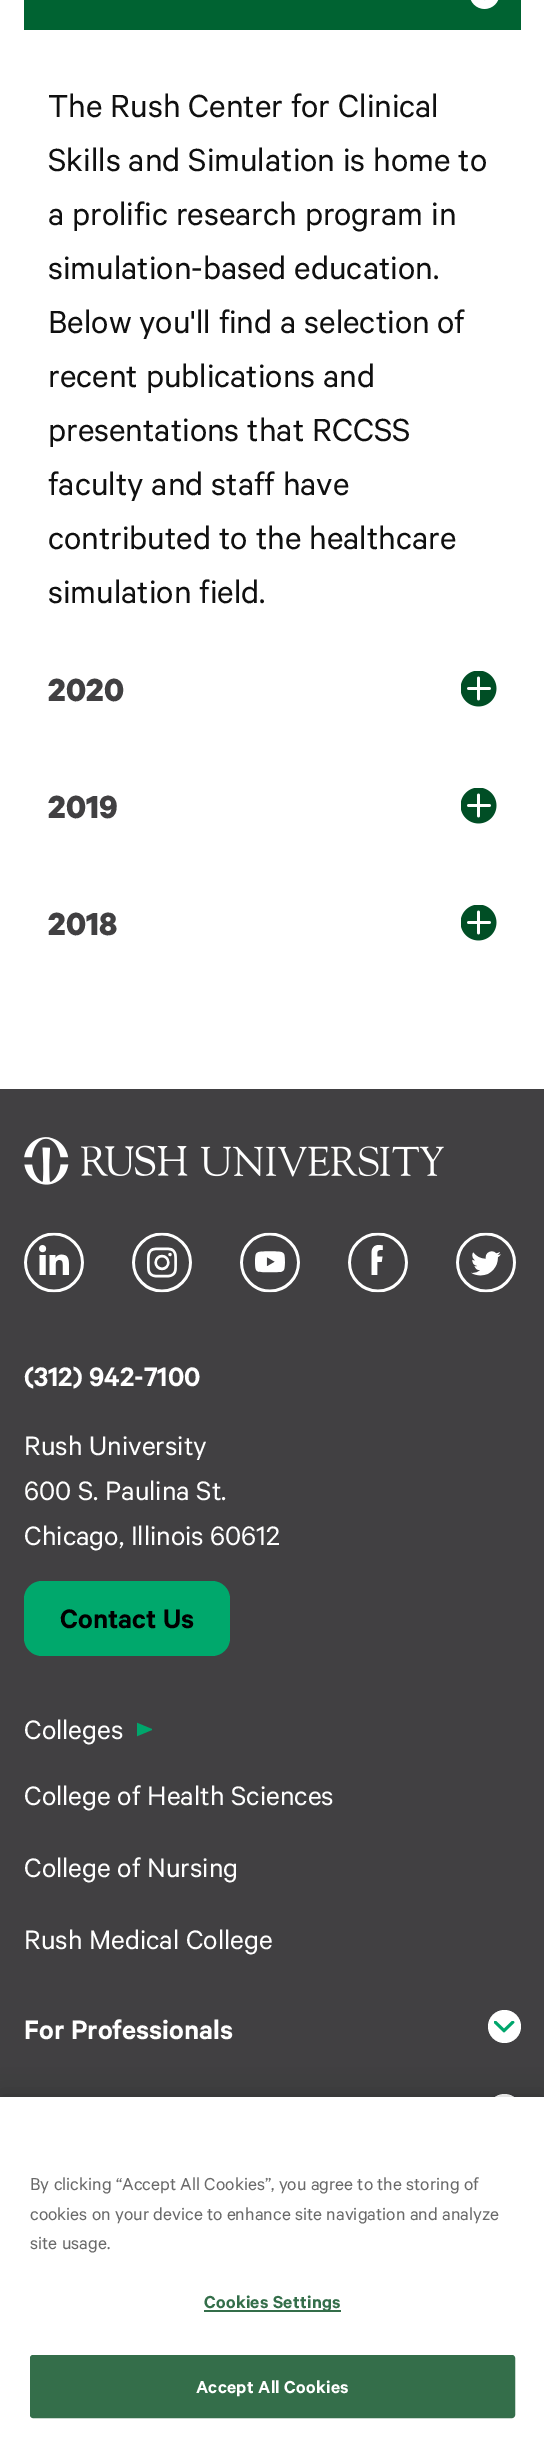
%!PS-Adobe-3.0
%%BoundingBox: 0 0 544 2442
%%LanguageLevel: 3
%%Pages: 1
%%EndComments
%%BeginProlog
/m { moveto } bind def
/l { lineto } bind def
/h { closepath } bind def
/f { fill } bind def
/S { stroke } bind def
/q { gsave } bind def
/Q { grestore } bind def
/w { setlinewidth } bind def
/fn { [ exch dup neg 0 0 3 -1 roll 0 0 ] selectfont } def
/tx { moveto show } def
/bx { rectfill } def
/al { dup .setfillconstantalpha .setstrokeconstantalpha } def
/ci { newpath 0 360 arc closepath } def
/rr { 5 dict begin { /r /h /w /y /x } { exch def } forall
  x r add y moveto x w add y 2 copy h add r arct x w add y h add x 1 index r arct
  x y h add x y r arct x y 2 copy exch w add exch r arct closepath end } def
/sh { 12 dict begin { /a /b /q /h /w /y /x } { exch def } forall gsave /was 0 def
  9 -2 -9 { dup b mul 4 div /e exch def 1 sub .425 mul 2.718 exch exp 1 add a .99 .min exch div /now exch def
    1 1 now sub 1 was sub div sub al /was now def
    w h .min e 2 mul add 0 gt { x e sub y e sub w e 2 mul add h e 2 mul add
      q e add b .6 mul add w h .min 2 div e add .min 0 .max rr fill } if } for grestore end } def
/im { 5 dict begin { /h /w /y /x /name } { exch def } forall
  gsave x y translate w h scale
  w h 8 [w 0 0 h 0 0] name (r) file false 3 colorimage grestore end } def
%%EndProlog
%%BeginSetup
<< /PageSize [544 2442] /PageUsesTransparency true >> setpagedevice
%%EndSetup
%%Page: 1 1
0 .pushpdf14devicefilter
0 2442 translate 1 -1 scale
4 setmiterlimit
1 setgray
0 0 544 2442 bx
0 0.388 0.196 setrgbcolor
24 0 497 30 bx
(image0.raw) 470 0 29 9 im
/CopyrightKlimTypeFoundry-Regular 36 fn
0.063 setgray
(The Rush Center for Clinical) 48 117 tx
(Skills and Simulation is home to) 48 171 tx
(a prolific research program in) 48 225 tx
(simulation-based education.) 48 279 tx
(Below you'll find a selection of) 48 333 tx
(recent publications and) 48 387 tx
(presentations that RCCSS) 48 441 tx
(faculty and staff have) 48 495 tx
(contributed to the healthcare) 48 549 tx
(simulation field.) 48 603 tx
(image1.raw) 461 671 36 36 im
/CopyrightKlimTypeFoundry-Bold 36 fn
0.255 0.251 0.259 setrgbcolor
(2020) 48 701 tx
(image1.raw) 461 788 36 36 im
(2019) 48 818 tx
(image1.raw) 461 905 36 36 im
(2018) 48 935 tx
0 1089 544 1008 bx
(image2.raw) 24 1137 420 48 im
(image3.raw) 24 1232 60 61 im
(image4.raw) 132 1232 60 61 im
(image5.raw) 240 1232 60 61 im
(image6.raw) 348 1232 60 61 im
(image7.raw) 456 1232 60 61 im
/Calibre-SemiBold 30 fn
1 setgray
(\(312\) 942-7100) 24 1386 tx
/CopyrightKlimTypeFoundry-Regular 30 fn
(Rush University) 24 1455 tx
(600 S. Paulina St.) 24 1500 tx
(Chicago, Illinois 60612) 24 1545 tx
0 0.659 0.424 setrgbcolor
24 1581 206 75 18 rr f
/Calibre-SemiBold 30 fn
0 setgray
(Contact Us) 60 1628 tx
/CopyrightKlimTypeFoundry-Regular 30 fn
1 setgray
(Colleges) 24 1739 tx
q
137 1722 15 15 rectclip
0 0.651 0.424 setrgbcolor
153 1729.5 m 135 1737 l 135 1722 l h eofill
Q
(College of Health Sciences) 24 1805 tx
(College of Nursing) 24 1877 tx
(Rush Medical College) 24 1949 tx
/Calibre-SemiBold 30 fn
(For Professionals) 24 2039 tx
504.5 2026.5 16.5 ci f
(image8.raw) 494 2021 21 12 im
504.5 2110.5 16.5 ci f
0 setgray
0 2097 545 345 0 13.5 0.2 sh
1 setgray
0 2097 544 345 bx
/CopyrightKlimTypeFoundry-Regular 19.5 fn
0.412 setgray
(By clicking “Accept All Cookies”, you agree to the storing of) 30 2190 tx
(cookies on your device to enhance site navigation and analyze) 30 2220 tx
(site usage.) 30 2249 tx
0.204 0.431 0.29 setrgbcolor
204 2310 137 2 bx
/Calibre-SemiBold 19.5 fn
204 2308 m 0.25 0 (Cookies Settings) ashow
31 2356 483 61 2 rr q f Q
2 w
S
1 setgray
196 2393 m 0.25 0 (Accept All Cookies) ashow
.poppdf14devicefilter showpage
%%EOF
